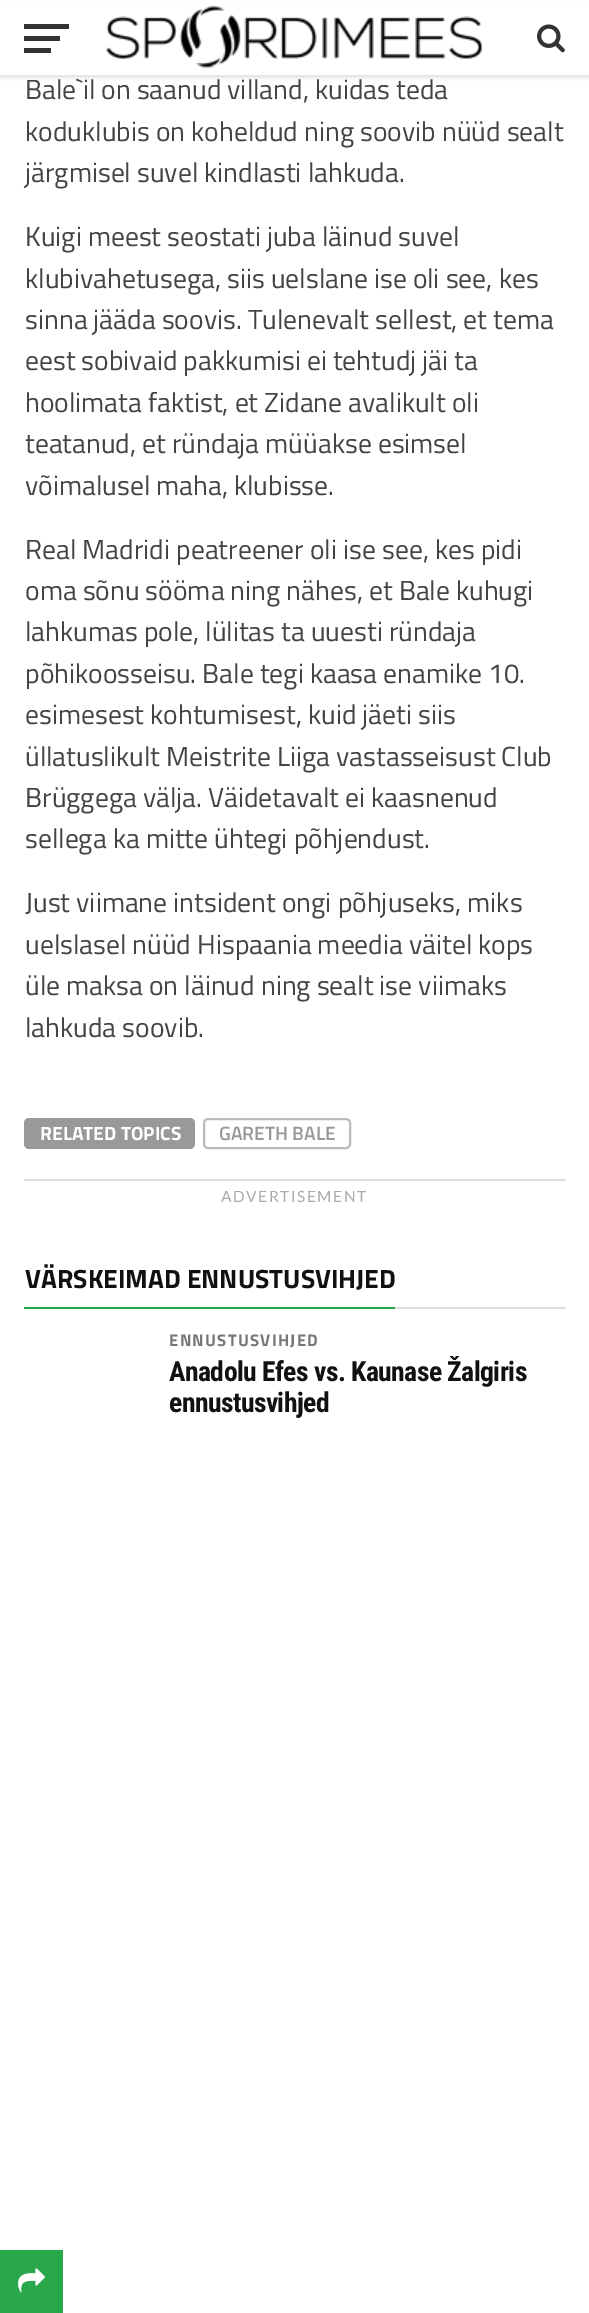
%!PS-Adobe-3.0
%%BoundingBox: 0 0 589 2313
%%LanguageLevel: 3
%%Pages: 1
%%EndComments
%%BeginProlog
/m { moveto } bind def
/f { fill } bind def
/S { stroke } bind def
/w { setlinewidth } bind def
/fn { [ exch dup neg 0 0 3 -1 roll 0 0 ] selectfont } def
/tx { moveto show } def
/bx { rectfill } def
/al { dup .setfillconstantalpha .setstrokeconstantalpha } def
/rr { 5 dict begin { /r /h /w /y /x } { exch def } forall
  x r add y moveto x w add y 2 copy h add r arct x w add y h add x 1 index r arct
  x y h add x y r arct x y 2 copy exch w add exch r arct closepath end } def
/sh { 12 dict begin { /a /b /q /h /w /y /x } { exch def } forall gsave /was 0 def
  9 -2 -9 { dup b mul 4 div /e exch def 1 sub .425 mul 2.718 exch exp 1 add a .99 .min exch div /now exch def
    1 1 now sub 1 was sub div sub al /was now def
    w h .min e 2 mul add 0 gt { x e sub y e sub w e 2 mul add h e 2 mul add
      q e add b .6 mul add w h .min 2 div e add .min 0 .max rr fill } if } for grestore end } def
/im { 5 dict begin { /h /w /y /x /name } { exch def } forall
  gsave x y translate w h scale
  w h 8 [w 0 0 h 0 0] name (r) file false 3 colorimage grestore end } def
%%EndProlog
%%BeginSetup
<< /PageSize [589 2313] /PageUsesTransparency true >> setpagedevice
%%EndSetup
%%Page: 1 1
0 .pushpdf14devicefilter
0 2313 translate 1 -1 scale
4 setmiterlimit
1 setgray
0 0 589 2313 bx
0 setgray
0 3 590 75 0 1.5 0.1 sh
1 setgray
0 1 589 74 bx
0.2 setgray
24 24 45 5 bx
24 36 36 5 bx
24 48 27 5 bx
(image0.raw) 106 5 376 63 im
(image1.raw) 537 24 28 29 im
/TitilliumWeb-Regular 27.6 fn
0.267 setgray
(Bale`il on saanud villand, kuidas teda) 25 99 tx
(koduklubis on koheldud ning soovib nüüd sealt) 25 141 tx
(järgmisel suvel kindlasti lahkuda.) 25 182 tx
(Kuigi meest seostati juba läinud suvel) 25 246 tx
(klubivahetusega, siis uelslane ise oli see, kes) 25 288 tx
(sinna jääda soovis. Tulenevalt sellest, et tema) 25 329 tx
(eest sobivaid pakkumisi ei tehtudj jäi ta) 25 370 tx
(hoolimata faktist, et Zidane avalikult oli) 25 412 tx
(teatanud, et ründaja müüakse esimsel) 25 453 tx
(võimalusel maha, klubisse.) 25 495 tx
(Real Madridi peatreener oli ise see, kes pidi) 25 559 tx
(oma sõnu sööma ning nähes, et Bale kuhugi) 25 600 tx
(lahkumas pole, lülitas ta uuesti ründaja) 25 641 tx
(põhikoosseisu. Bale tegi kaasa enamike 10.) 25 683 tx
(esimesest kohtumisest, kuid jäeti siis) 25 724 tx
(üllatuslikult Meistrite Liiga vastasseisust Club) 25 766 tx
(Brüggega välja. Väidetavalt ei kaasnenud) 25 807 tx
(sellega ka mitte ühtegi põhjendust.) 25 848 tx
(Just viimane intsident ongi põhjuseks, miks) 25 912 tx
(uelslasel nüüd Hispaania meedia väitel kops) 25 954 tx
(üle maksa on läinud ning sealt ise viimaks) 25 995 tx
(lahkuda soovib.) 25 1037 tx
0.6 setgray
24 1118 171 31 5 rr f
/TitilliumWeb-Bold 19.25 fn
1 setgray
(RELATED TOPICS) 40 1140 tx
0.733 setgray
2 w
204 1119 146 29 4 rr S
/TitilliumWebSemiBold-SemiBold 19.25 fn
0.6 setgray
(GARETH BALE) 219 1140 tx
0.867 setgray
24 1179 542 2 bx
/Lato-Regular 15.5 fn
0.667 setgray
221 1202 m 1.5 0 (ADVERTISEMENT) ashow
0.867 setgray
395 1307 171 2 bx
0.157 0.659 0.29 setrgbcolor
24 1307 371 2 bx
/TitilliumWeb-Bold 26.4 fn
0.067 setgray
(VÄRSKEIMAD ENNUSTUSVIHJED) 25 1288 tx
/TitilliumWeb-Bold 16.75 fn
0.467 setgray
169 1346 m 1.25 0 (ENNUSTUSVIHJED) ashow
/RobotoCondensed-Bold 27.6 fn
0.067 setgray
169 1381 m -0.55 0 (Anadolu Efes vs. Kaunase Žalgiris) ashow
169 1412 m -0.55 0 (ennustusvihjed) ashow
0.157 0.659 0.29 setrgbcolor
0 2250 63 63 bx
(image2.raw) 18 2268 27 25 im
.poppdf14devicefilter showpage
%%EOF
